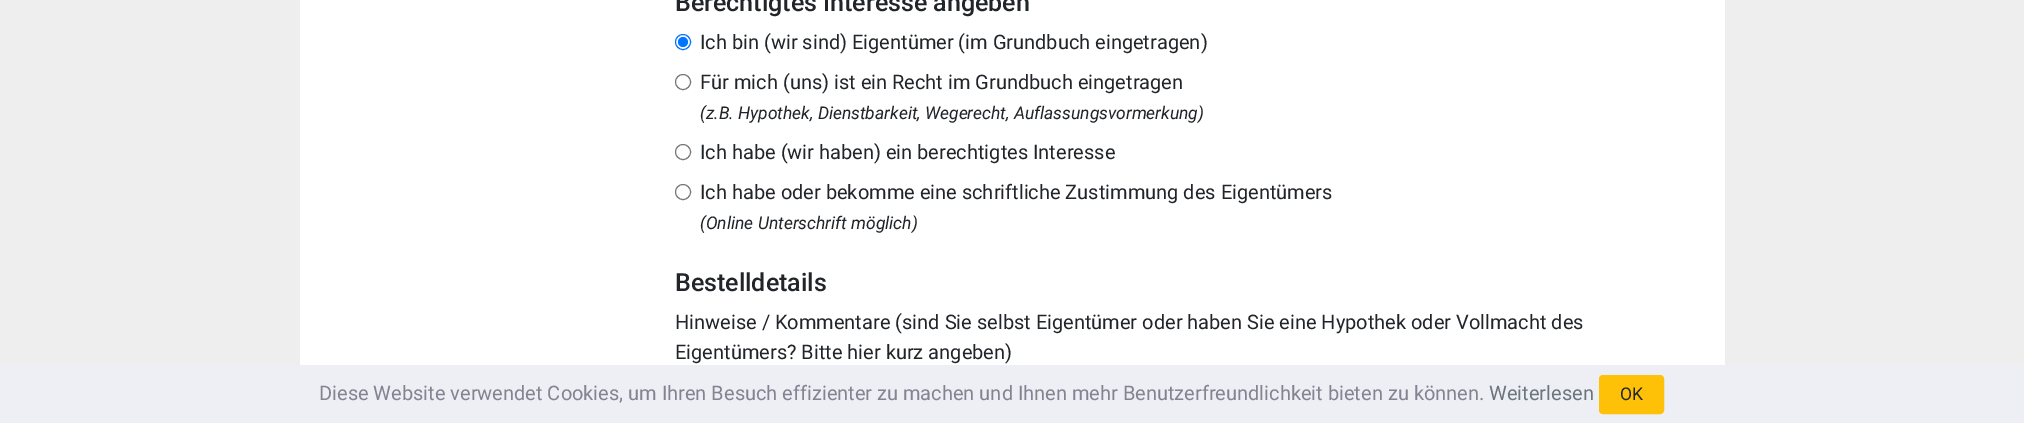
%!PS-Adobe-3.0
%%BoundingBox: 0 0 2024 423
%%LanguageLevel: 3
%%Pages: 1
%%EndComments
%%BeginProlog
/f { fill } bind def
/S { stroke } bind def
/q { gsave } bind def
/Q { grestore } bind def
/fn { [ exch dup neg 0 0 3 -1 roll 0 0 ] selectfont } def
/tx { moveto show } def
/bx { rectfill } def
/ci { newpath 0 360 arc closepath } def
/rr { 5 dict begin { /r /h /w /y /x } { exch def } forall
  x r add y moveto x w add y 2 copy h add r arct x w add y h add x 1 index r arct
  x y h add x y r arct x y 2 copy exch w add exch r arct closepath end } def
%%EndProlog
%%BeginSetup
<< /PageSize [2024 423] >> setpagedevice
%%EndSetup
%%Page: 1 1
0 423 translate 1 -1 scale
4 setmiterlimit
0.933 setgray
0 0 2024 423 bx
1 setgray
300 0 1425 365 bx
/Roboto-Medium 25 fn
0.129 0.145 0.161 setrgbcolor
(Berechtigtes Interesse angeben) 675 11 tx
0 0.459 1 setrgbcolor
683 42 7.5 ci S
683 42 5 ci f
/Roboto-Regular 20 fn
0.129 0.145 0.161 setrgbcolor
(Ich bin \(wir sind\) Eigentümer \(im Grundbuch eingetragen\)) 700 49 tx
0.463 setgray
683 82 7.5 ci S
0.129 0.145 0.161 setrgbcolor
(Für mich \(uns\) ist ein Recht im Grundbuch eingetragen) 700 89 tx
/Roboto-Italic 17.5 fn
(\(z.B. Hypothek, Dienstbarkeit, Wegerecht, Auflassungsvormerkung\)) 700 119 tx
0.463 setgray
683 152 7.5 ci S
/Roboto-Regular 20 fn
0.129 0.145 0.161 setrgbcolor
(Ich habe \(wir haben\) ein berechtigtes Interesse) 700 159 tx
0.463 setgray
683 192 7.5 ci S
0.129 0.145 0.161 setrgbcolor
(Ich habe oder bekomme eine schriftliche Zustimmung des Eigentümers) 700 199 tx
/Roboto-Italic 17.5 fn
(\(Online Unterschrift möglich\)) 700 229 tx
/Roboto-Medium 25 fn
(Bestelldetails) 675 291 tx
/Roboto-Regular 20 fn
(Hinweise / Kommentare \(sind Sie selbst Eigentümer oder haben Sie eine Hypothek oder Vollmacht des) 675 329 tx
(Eigentümers? Bitte hier kurz angeben\)) 675 359 tx
0.929 0.937 0.961 setrgbcolor
0 365 2024 58 bx
0.514 0.514 0.569 setrgbcolor
(Diese Website verwendet Cookies, um Ihren Besuch effizienter zu machen und Ihnen mehr Benutzerfreundlichkeit bieten zu können.) 319 400 tx
0.424 0.459 0.49 setrgbcolor
(Weiterlesen) 1489 400 tx
1 0.757 0.027 setrgbcolor
1599.5 375.5 64 38 3.5 rr q f Q
S
/Roboto-Regular 17.5 fn
0.129 0.145 0.161 setrgbcolor
(OK) 1620 400 tx
showpage
%%EOF
